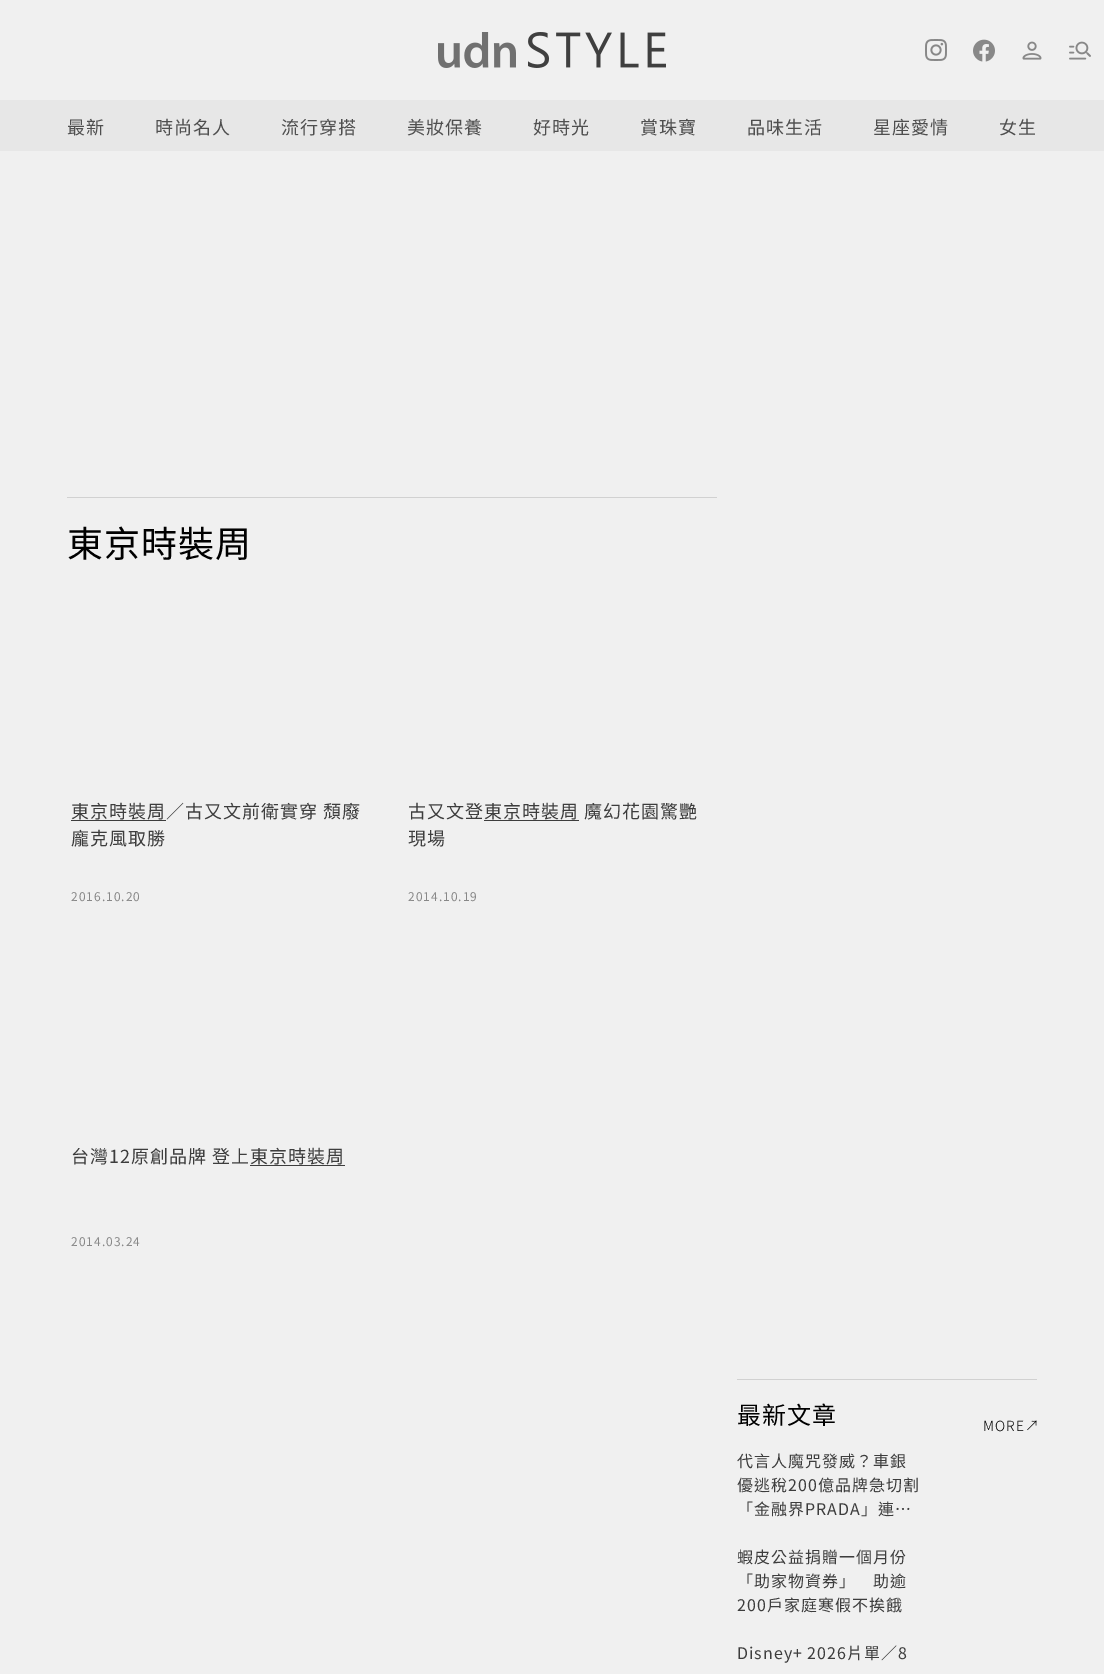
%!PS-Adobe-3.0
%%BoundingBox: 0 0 1104 1674
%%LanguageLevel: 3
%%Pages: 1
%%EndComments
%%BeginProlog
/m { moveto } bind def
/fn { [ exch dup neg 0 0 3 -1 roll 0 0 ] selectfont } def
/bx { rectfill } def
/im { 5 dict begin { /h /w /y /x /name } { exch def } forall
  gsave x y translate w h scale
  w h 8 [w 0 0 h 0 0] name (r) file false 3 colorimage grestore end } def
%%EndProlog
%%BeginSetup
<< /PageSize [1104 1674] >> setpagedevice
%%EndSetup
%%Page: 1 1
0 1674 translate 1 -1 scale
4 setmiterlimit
0.941 setgray
0 0 1104 1674 bx
(image0.raw) 438 32 78 36 im
(image1.raw) 528 32 138 36 im
(image2.raw) 925 39 22 22 im
(image3.raw) 973 39 22 23 im
(image4.raw) 1022 41 20 19 im
(image5.raw) 1069 41 22 19 im
0.906 setgray
0 100 1104 51 bx
/NotoSansTC-Regular 18 fn
0.31 setgray
67 134 m 1 0 (最新) ashow
155 134 m 1 0 (時尚名人) ashow
281 134 m 1 0 (流行穿搭) ashow
407 134 m 1 0 (美妝保養) ashow
533 134 m 1 0 (好時光) ashow
640 134 m 1 0 (賞珠寶) ashow
747 134 m 1 0 (品味生活) ashow
873 134 m 1 0 (星座愛情) ashow
999 134 m 1 0 (女生) ashow
0.82 setgray
67 497 650 1 bx
/NotoSansTC-Regular 36 fn
0 setgray
67 557 m 1 0 (東京時裝周) ashow
/NotoSansTC-Regular 18 fn
0.239 setgray
71 818 m 1 0 (東京時裝周／古又文前衛實穿 頹廢) ashow
71 820 95 1 bx
71 845 m 1 0 (龐克風取勝) ashow
/NotoSansTC-Regular 12 fn
0.533 setgray
71 901 m 1 0 (2016.10.20) ashow
/NotoSansTC-Regular 18 fn
0.239 setgray
408 818 m 1 0 (古又文登東京時裝周 魔幻花園驚艷) ashow
484 820 95 1 bx
408 845 m 1 0 (現場) ashow
/NotoSansTC-Regular 12 fn
0.533 setgray
408 901 m 1 0 (2014.10.19) ashow
/NotoSansTC-Regular 18 fn
0.239 setgray
71 1163 m 1 0 (台灣12原創品牌 登上東京時裝周) ashow
250 1165 95 1 bx
/NotoSansTC-Regular 12 fn
0.533 setgray
71 1246 m 1 0 (2014.03.24) ashow
0.82 setgray
737 1379 300 1 bx
/NotoSansTC-Regular 24 fn
0 setgray
737 1424 m 1 0 (最新文章) ashow
/NotoSansTC-Light 14 fn
983 1431 m 1 0 (MORE) ashow
(image6.raw) 1027 1420 10 11 im
/NotoSansTC-Regular 16 fn
0.239 setgray
737 1467 m 1 0 (代言人魔咒發威？車銀) ashow
737 1491 m 1 0 (優逃稅200億品牌急切割) ashow
737 1515 m 1 0 (「金融界PRADA」連…) ashow
737 1563 m 1 0 (蝦皮公益捐贈一個月份) ashow
737 1587 m 1 0 (「助家物資券」　助逾) ashow
737 1611 m 1 0 (200戶家庭寒假不挨餓) ashow
737 1659 m 1 0 (Disney+ 2026片單／8) ashow
showpage
%%EOF
